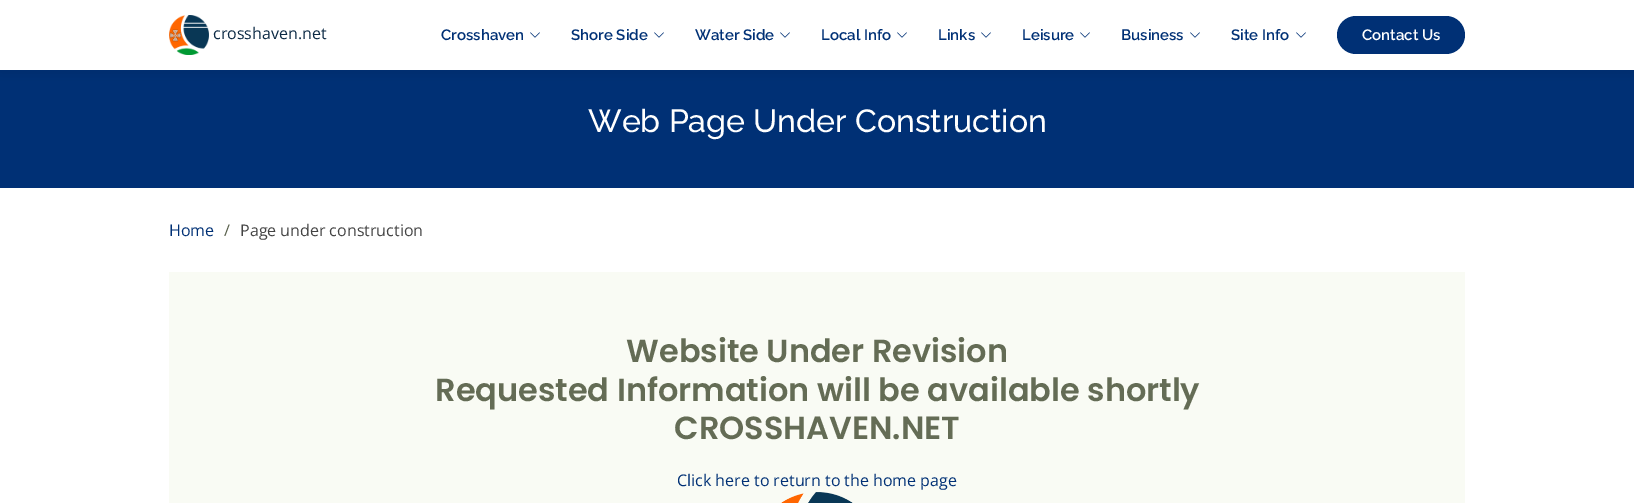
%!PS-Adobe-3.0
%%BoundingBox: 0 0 1634 503
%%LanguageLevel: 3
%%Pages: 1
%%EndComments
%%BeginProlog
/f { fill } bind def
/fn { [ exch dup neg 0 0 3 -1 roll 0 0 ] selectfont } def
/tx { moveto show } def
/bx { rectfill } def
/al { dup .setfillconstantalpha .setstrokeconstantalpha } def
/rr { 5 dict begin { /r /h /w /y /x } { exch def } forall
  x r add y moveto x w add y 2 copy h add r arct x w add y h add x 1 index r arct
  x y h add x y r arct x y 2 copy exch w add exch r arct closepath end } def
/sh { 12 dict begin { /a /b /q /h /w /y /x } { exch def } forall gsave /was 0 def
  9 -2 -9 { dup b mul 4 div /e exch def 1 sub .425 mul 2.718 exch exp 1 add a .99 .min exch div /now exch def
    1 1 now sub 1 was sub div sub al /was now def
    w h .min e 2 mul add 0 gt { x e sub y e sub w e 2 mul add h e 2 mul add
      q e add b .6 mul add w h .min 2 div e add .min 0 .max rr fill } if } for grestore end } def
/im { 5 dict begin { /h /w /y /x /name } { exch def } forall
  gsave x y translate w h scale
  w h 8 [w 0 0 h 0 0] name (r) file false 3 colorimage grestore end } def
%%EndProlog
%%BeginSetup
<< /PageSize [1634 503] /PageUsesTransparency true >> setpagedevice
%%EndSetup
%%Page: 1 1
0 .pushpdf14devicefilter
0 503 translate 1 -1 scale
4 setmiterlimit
1 setgray
0 0 1634 503 bx
0 0.188 0.459 setrgbcolor
0 70 1634 118 bx
0 setgray
0 2 1634 70 0 7.5 0.1 sh
1 setgray
0 0 1634 70 bx
(image0.raw) 169 15 40 40 im
/OpenSans-Regular 16 fn
0.043 0.161 0.267 setrgbcolor
(crosshaven.net) 213 39 tx
/Raleway-SemiBold 15 fn
0 0.188 0.459 setrgbcolor
(Crosshaven) 441 40 tx
(image1.raw) 530 32 10 6 im
(Shore Side) 571 40 tx
(image1.raw) 654 32 10 6 im
(Water Side) 695 40 tx
(image1.raw) 780 32 10 6 im
(Local Info) 821 40 tx
(image1.raw) 897 32 10 6 im
(Links) 938 40 tx
(image1.raw) 981 32 10 6 im
(Leisure) 1022 40 tx
(image1.raw) 1080 32 10 6 im
(Business) 1121 40 tx
(image1.raw) 1190 32 10 6 im
(Site Info) 1231 40 tx
(image1.raw) 1296 32 10 6 im
1337 16 128 38 19 rr f
1 setgray
(Contact Us) 1362 40 tx
/Raleway-Medium 32 fn
(Web Page Under Construction) 588 132 tx
/OpenSans-Regular 16 fn
0 0.188 0.459 setrgbcolor
(Home) 169 236 tx
0.337 0.369 0.286 setrgbcolor
(/) 224 236 tx
0.267 setgray
(Page under construction) 240 236 tx
0.976 0.984 0.957 setrgbcolor
169 272 1296 231 bx
/Poppins-SemiBold 32 fn
0.392 0.424 0.333 setrgbcolor
(Website Under Revision) 626 362 tx
(Requested Information will be available shortly) 435 401 tx
(CROSSHAVEN.NET) 674 439 tx
/OpenSans-Regular 16 fn
0 0.188 0.459 setrgbcolor
(Click here to return to the home page) 677 486 tx
(image2.raw) 781 492 72 11 im
.poppdf14devicefilter showpage
%%EOF
